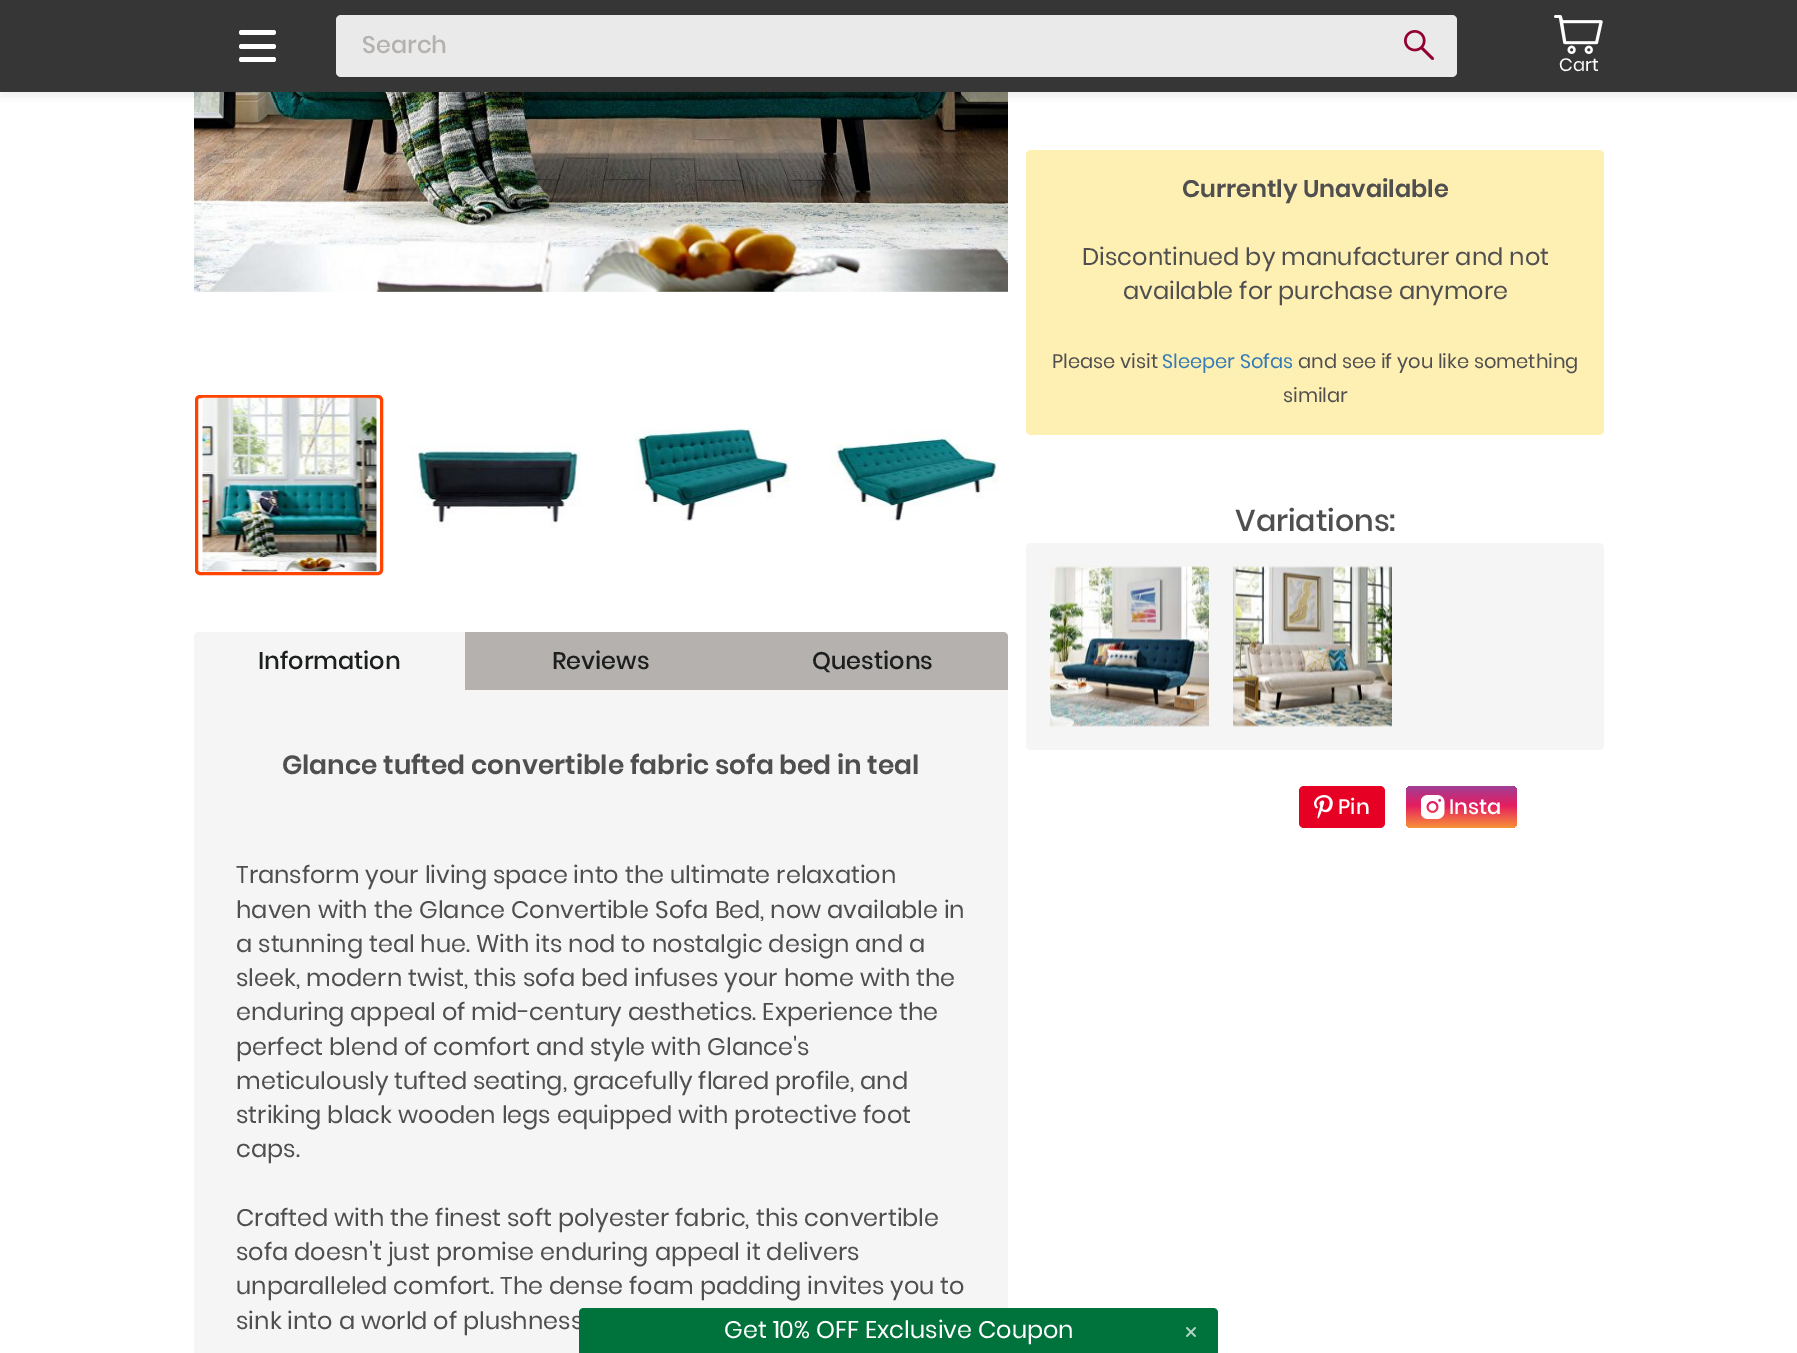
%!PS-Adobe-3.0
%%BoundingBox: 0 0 1797 1353
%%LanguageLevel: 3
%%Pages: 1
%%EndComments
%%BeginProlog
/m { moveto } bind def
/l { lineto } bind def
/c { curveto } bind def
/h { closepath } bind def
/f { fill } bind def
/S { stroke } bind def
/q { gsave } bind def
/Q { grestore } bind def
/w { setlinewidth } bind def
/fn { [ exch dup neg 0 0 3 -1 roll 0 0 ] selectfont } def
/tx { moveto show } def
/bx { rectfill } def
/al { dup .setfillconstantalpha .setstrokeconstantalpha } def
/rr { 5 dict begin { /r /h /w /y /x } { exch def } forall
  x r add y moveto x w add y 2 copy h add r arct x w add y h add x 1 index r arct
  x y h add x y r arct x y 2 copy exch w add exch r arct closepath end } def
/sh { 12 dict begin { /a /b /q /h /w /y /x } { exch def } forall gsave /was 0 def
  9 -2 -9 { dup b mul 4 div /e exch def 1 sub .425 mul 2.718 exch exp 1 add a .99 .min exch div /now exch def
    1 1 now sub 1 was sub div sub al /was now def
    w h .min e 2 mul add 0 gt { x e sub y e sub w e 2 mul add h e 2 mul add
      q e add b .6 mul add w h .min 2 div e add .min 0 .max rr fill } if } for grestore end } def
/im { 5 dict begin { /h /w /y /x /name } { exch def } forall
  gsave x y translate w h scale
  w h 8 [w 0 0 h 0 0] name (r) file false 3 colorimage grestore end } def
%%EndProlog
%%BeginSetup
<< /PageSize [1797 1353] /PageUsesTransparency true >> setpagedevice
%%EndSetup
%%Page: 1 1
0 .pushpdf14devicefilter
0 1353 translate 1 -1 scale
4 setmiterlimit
1 setgray
0 0 1797 1353 bx
(image6.raw) 194 92 814 200 im
0 setgray
0 6 1797 92 0 3 0.06 sh
0.212 setgray
0 0 1797 92 bx
1 setgray
239 30 37 5 2.5 rr f
239 44 37 5 2.5 rr f
239 57 37 5 2.5 rr f
0.918 setgray
336 15 1121 62 5 rr f
/Poppins-Medium 24 fn
0.706 0.694 0.686 setrgbcolor
(Search) 362 53 tx
(image0.raw) 1404 30 30 30 im
(image1.raw) 1554 15 49 39 im
/Poppins-Regular 18 fn
1 setgray
(Cart) 1559 71 tx
0.996 0.937 0.702 setrgbcolor
1026 150 578 285 5 rr f
/Poppins-SemiBold 24 fn
0.31 setgray
(Currently Unavailable) 1182 197 tx
/Poppins-Regular 24 fn
(Discontinued by manufacturer and not) 1082 265 tx
(available for purchase anymore) 1123 299 tx
/Poppins-Regular 19.5 fn
(Please visit) 1052 368 tx
0.2 0.478 0.718 setrgbcolor
(Sleeper Sofas) 1162 368 tx
0.31 setgray
(and see if you like something) 1298 368 tx
(similar) 1283 402 tx
/Poppins-Medium 30 fn
(Variations:) 1235 531 tx
0.961 setgray
1026 543 578 207 5 rr f
(image2.raw) 1050 566 159 161 im
(image3.raw) 1233 566 159 161 im
0.902 0 0.137 setrgbcolor
1299 786 86 42 5 rr f
(image4.raw) 1314 795 19 24 im
/Poppins-Medium 21 fn
1 setgray
(Pin) 1338 814 tx
q 1406 786 111 42 5 rr clip newpath
<< /ShadingType 2 /ColorSpace /DeviceRGB /Coords [1461 786 1461 828] /Extend [true true] /Function << /FunctionType 3 /Domain [0 1] /Functions [<< /FunctionType 2 /Domain [0 1] /C0 [0.62 0.251 0.596] /C1 [0.898 0.11 0.376] /N 1 >> << /FunctionType 2 /Domain [0 1] /C0 [0.898 0.11 0.376] /C1 [0.973 0.576 0.216] /N 1 >>] /Bounds [0.46] /Encode [0 1 0 1] >> >> shfill Q
(image5.raw) 1421 795 24 24 im
(Insta) 1449 814 tx
1 0.263 0 setrgbcolor
3 w
196.5 396.5 185 177 3.5 rr S
(image7.raw) 202 397 175 175 im
(image8.raw) 411 444 170 84 im
(image9.raw) 635 428 155 93 im
(image10.raw) 829 429 170 92 im
0.961 setgray
199 632 m 465 632 l 465 690 l 194 690 l 194 637 l 194 634 196 632 199 632 c h f
/Poppins-Medium 24 fn
0.114 0.122 0.122 setrgbcolor
(Information) 258 669 tx
0.706 0.694 0.686 setrgbcolor
465 632 272 58 bx
0.114 0.122 0.122 setrgbcolor
(Reviews) 552 669 tx
0.706 0.694 0.686 setrgbcolor
737 632 m 1003 632 l 1006 632 1008 634 1008 637 c 1008 690 l 737 690 l h f
0.114 0.122 0.122 setrgbcolor
(Questions) 812 669 tx
0.961 setgray
194 690 814 663 bx
/Poppins-SemiBold 26.4 fn
0.31 setgray
(Glance tufted convertible fabric sofa bed in teal) 282 774 tx
/Poppins-Regular 24 fn
(Transform your living space into the ultimate relaxation) 236 883 tx
(haven with the Glance Convertible Sofa Bed, now available in) 236 918 tx
(a stunning teal hue. With its nod to nostalgic design and a) 236 952 tx
(sleek, modern twist, this sofa bed infuses your home with the) 236 986 tx
(enduring appeal of mid-century aesthetics. Experience the) 236 1020 tx
(perfect blend of comfort and style with Glance's) 236 1055 tx
(meticulously tufted seating, gracefully flared profile, and) 236 1089 tx
(striking black wooden legs equipped with protective foot) 236 1123 tx
(caps.) 236 1157 tx
(Crafted with the finest soft polyester fabric, this convertible) 236 1226 tx
(sofa doesn't just promise enduring appeal it delivers) 236 1260 tx
(unparalleled comfort. The dense foam padding invites you to) 236 1294 tx
(sink into a world of plushness) 236 1329 tx
0 0.451 0.235 setrgbcolor
584 1308 m 1213 1308 l 1216 1308 1218 1310 1218 1313 c 1218 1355 l 579 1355 l 579 1313 l 579 1310 581 1308 584 1308 c h f
1 setgray
(Get 10% OFF Exclusive Coupon) 724 1338 tx
(image11.raw) 1186 1327 10 10 im
.poppdf14devicefilter showpage
%%EOF
